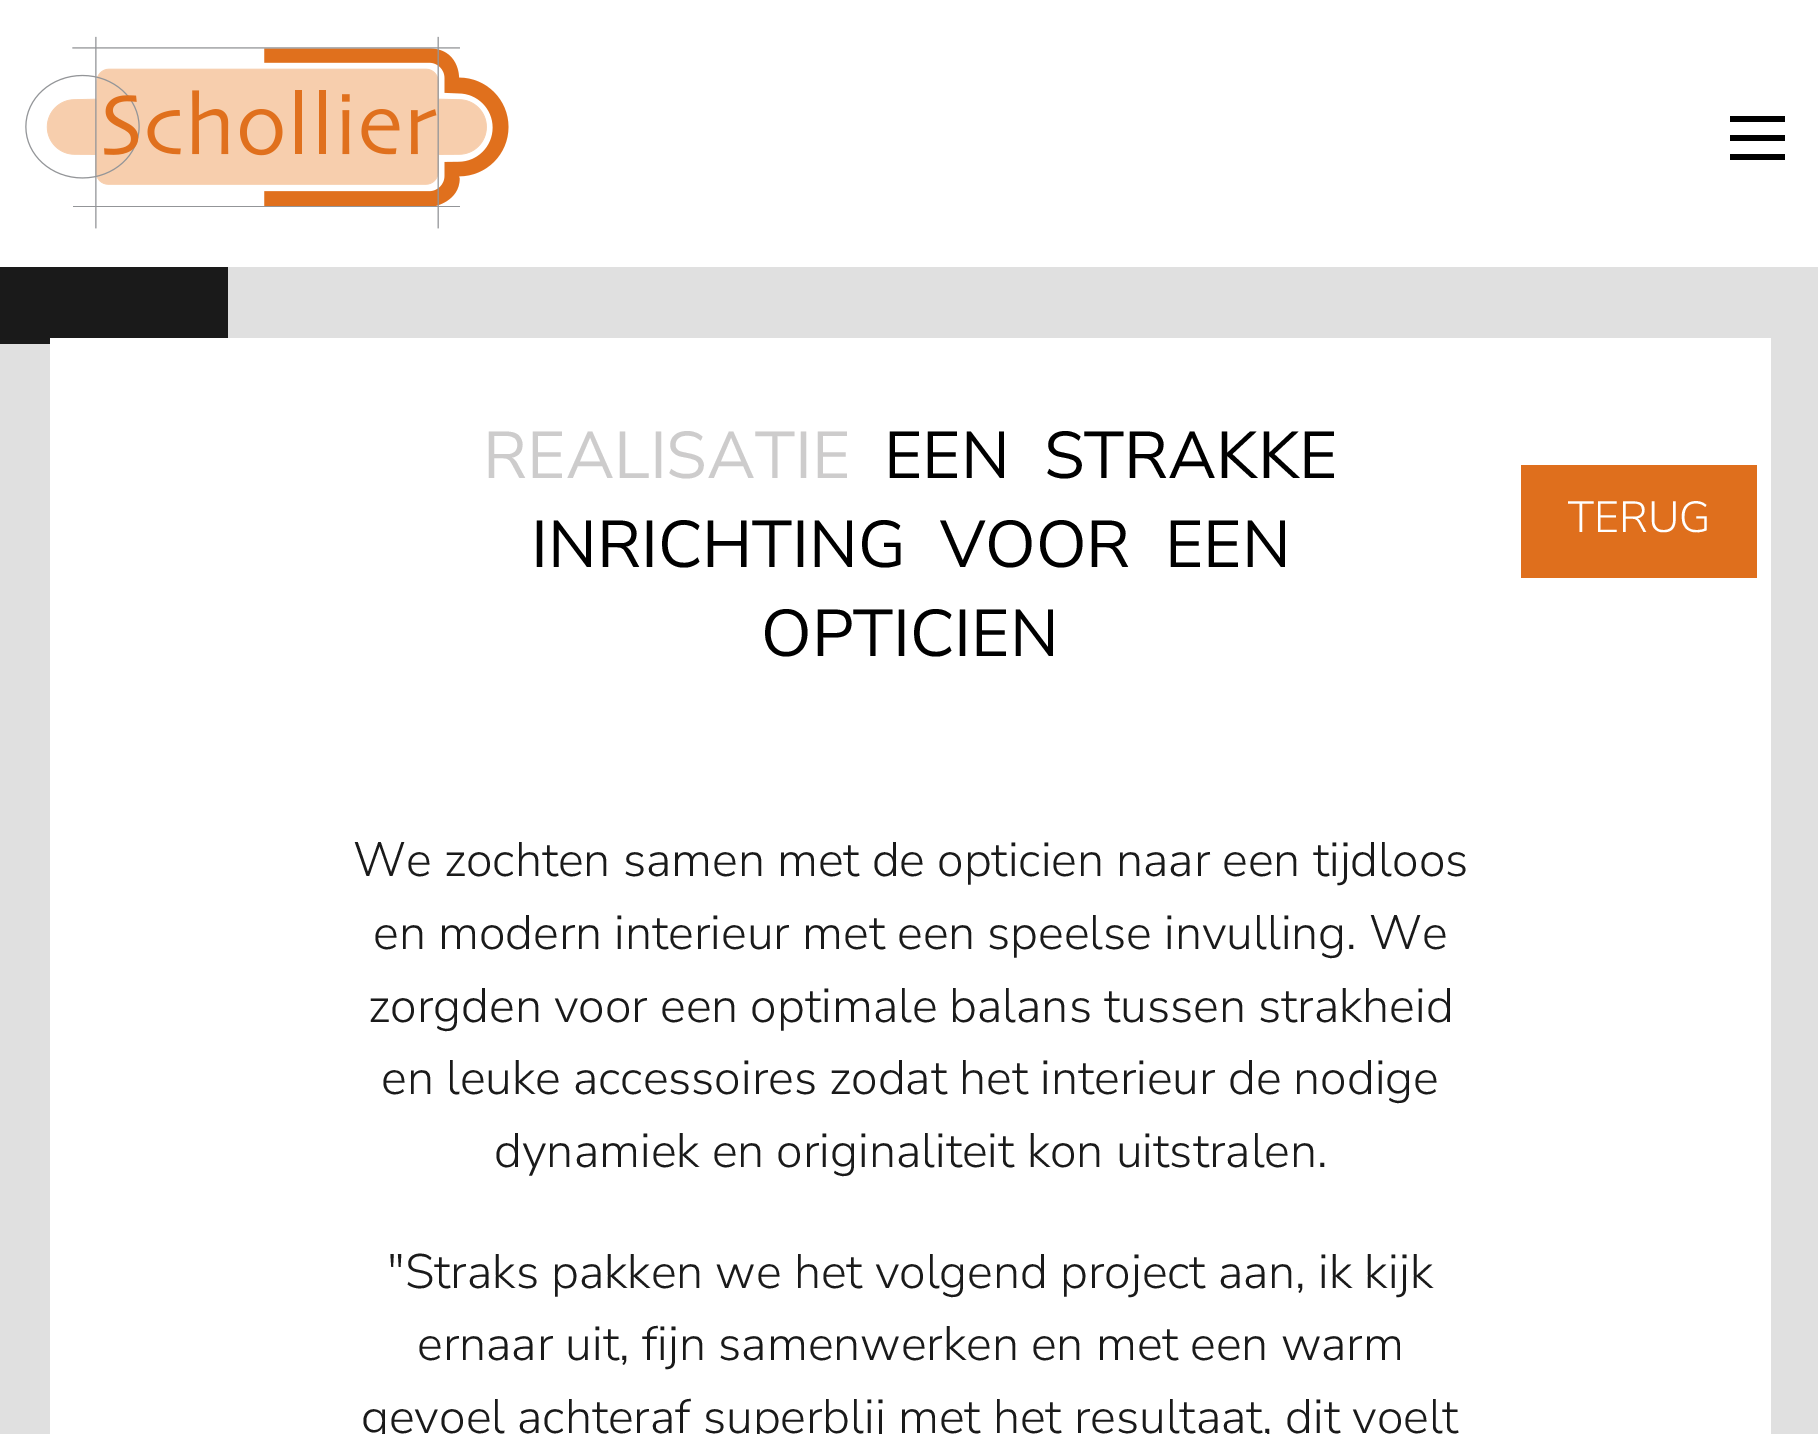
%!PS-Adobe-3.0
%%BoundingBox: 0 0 1818 1434
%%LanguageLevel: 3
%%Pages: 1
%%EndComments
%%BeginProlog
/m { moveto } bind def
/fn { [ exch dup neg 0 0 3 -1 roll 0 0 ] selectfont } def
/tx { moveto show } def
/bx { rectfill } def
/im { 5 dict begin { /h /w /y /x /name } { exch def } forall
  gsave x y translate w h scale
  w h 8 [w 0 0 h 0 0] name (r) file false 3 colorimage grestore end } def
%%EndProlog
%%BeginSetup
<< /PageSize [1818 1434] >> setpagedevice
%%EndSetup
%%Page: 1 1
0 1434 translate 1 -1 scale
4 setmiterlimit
0.878 setgray
0 0 1818 1434 bx
1 setgray
0 0 1818 267 bx
(image0.raw) 25 36 484 193 im
0 setgray
1730 154 55 6 bx
1730 135 55 6 bx
1730 116 55 6 bx
0.102 setgray
0 267 228 77 bx
1 setgray
50 338 1721 1096 bx
/NunitoSans-Regular 66 fn
0.804 0.8 0.8 setrgbcolor
(REALISATIE) 483 478 tx
0 setgray
884 478 m 17 0 32 (EEN STRAKKE) widthshow
531 567 m 17 0 32 (INRICHTING VOOR EEN) widthshow
(OPTICIEN) 761 656 tx
0.875 0.435 0.114 setrgbcolor
1521 465 236 113 bx
/NunitoSans-Light 43.5 fn
1 setgray
(TERUG) 1568 532 tx
/NunitoSans-Light 48.4 fn
0.102 setgray
(We zochten samen met de opticien naar een tijdloos) 353 876 tx
(en modern interieur met een speelse invulling. We) 373 949 tx
(zorgden voor een optimale balans tussen strakheid) 368 1022 tx
(en leuke accessoires zodat het interieur de nodige) 381 1094 tx
(dynamiek en originaliteit kon uitstralen.) 494 1167 tx
("Straks pakken we het volgend project aan, ik kijk) 387 1288 tx
(ernaar uit, fijn samenwerken en met een warm) 417 1360 tx
(gevoel achteraf superblij met het resultaat, dit voelt) 361 1433 tx
showpage
%%EOF
